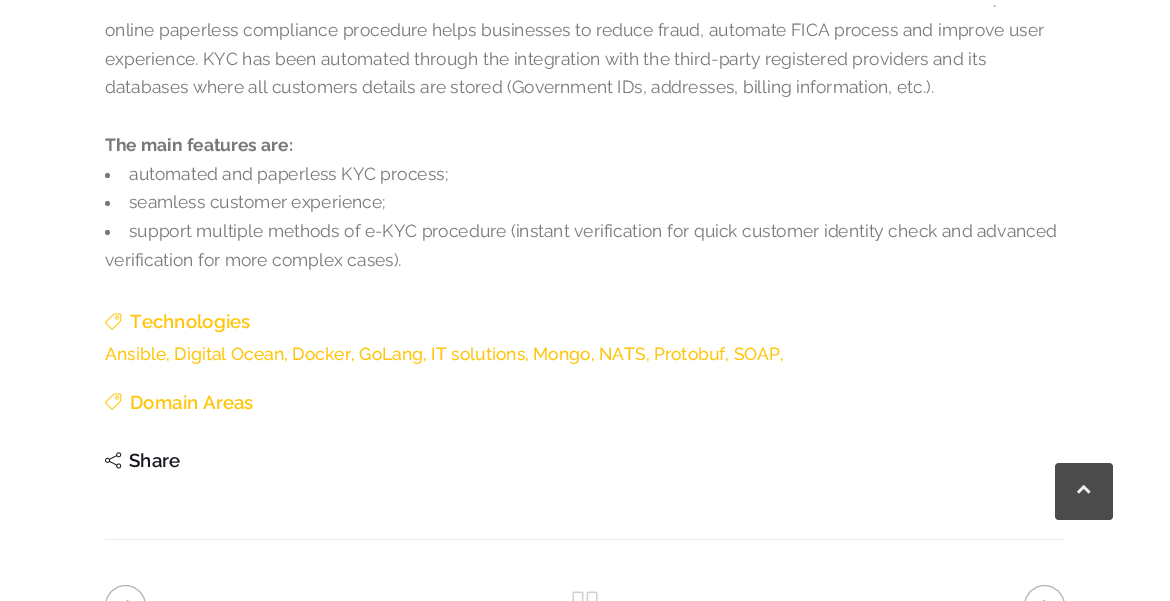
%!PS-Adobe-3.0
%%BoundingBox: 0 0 1170 601
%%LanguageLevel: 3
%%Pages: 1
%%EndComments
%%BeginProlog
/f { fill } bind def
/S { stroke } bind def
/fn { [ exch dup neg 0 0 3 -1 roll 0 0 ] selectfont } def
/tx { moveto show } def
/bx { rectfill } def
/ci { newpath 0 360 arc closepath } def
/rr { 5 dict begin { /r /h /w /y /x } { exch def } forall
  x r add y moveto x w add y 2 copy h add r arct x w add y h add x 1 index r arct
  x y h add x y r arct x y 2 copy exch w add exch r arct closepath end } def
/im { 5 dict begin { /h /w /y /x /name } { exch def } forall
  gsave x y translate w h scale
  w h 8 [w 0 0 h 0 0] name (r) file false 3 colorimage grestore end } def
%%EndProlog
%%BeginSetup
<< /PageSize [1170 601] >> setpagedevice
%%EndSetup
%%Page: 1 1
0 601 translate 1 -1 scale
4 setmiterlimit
1 setgray
0 0 1170 601 bx
/Raleway-Regular 17.5 fn
0.475 setgray
(.) 993 7 tx
(online paperless compliance procedure helps businesses to reduce fraud, automate FICA process and improve user) 105 36 tx
(experience. KYC has been automated through the integration with the third-party registered providers and its) 105 65 tx
(databases where all customers details are stored \(Government IDs, addresses, billing information, etc.\).) 105 93 tx
/Raleway-Bold 17.5 fn
(The main features are:) 105 151 tx
107.5 175.5 2.5 ci f
/Raleway-Regular 17.5 fn
(automated and paperless KYC process;) 129 180 tx
107.5 203.5 2.5 ci f
(seamless customer experience;) 129 208 tx
107.5 232.5 2.5 ci f
(support multiple methods of e-KYC procedure \(instant verification for quick customer identity check and advanced) 129 237 tx
(verification for more complex cases\).) 105 266 tx
(image0.raw) 105 313 17 17 im
/Raleway-SemiBold 18.75 fn
1 0.773 0.039 setrgbcolor
(Technologies) 130 328 tx
/Raleway-Medium 17.5 fn
(Ansible, Digital Ocean, Docker, GoLang, IT solutions, Mongo, NATS, Protobuf, SOAP,) 105 360 tx
(image0.raw) 105 393 17 17 im
/Raleway-SemiBold 18.75 fn
(Domain Areas) 130 409 tx
(image1.raw) 105 452 17 17 im
0.086 0.09 0.114 setrgbcolor
(Share) 129 467 tx
0.925 setgray
105 539 960 1 bx
0.706 setgray
105.5 585.5 40 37 20 rr S
(image2.raw) 126 599 3 2 im
(image3.raw) 572 591 26 10 im
1024.5 585.5 40 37 20 rr S
(image4.raw) 1042 599 3 2 im
0.294 setgray
1055 463 58 57 4 rr f
(image5.raw) 1077 485 14 9 im
showpage
%%EOF
